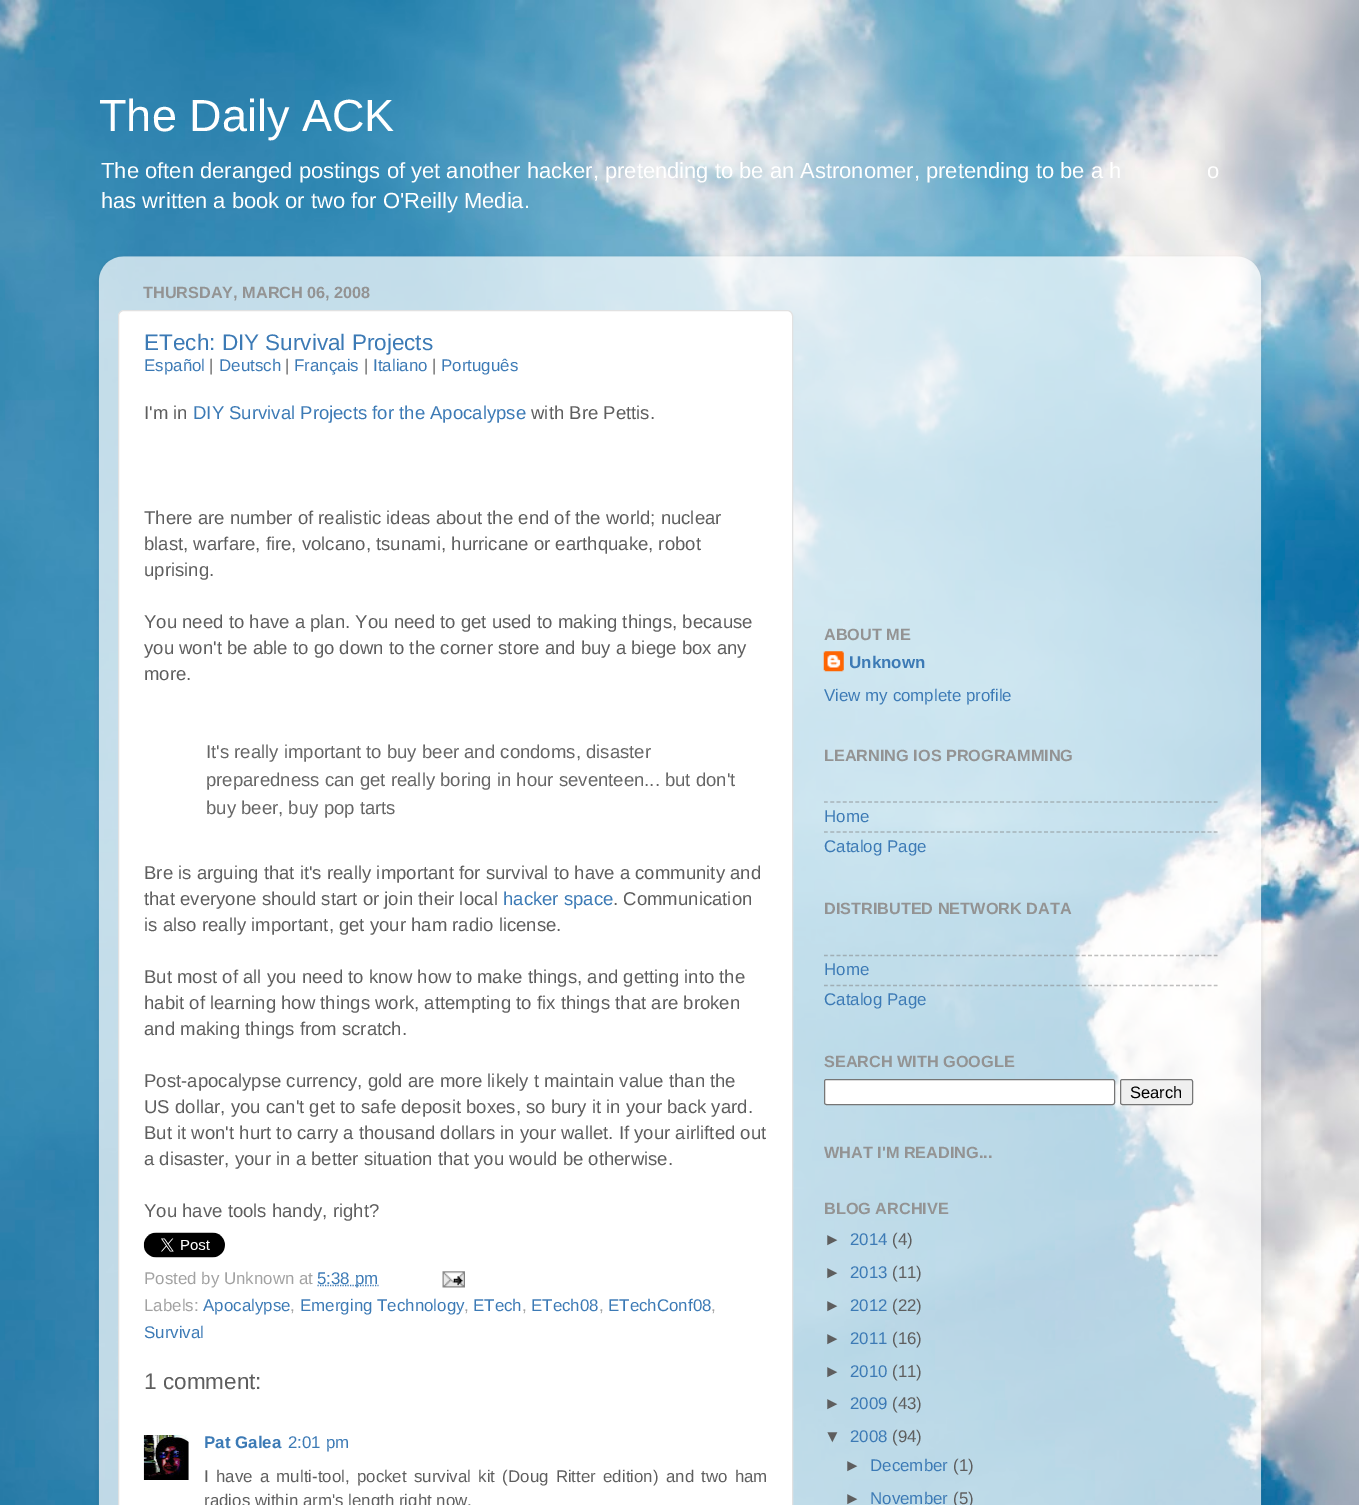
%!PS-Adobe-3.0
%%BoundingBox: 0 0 1359 1505
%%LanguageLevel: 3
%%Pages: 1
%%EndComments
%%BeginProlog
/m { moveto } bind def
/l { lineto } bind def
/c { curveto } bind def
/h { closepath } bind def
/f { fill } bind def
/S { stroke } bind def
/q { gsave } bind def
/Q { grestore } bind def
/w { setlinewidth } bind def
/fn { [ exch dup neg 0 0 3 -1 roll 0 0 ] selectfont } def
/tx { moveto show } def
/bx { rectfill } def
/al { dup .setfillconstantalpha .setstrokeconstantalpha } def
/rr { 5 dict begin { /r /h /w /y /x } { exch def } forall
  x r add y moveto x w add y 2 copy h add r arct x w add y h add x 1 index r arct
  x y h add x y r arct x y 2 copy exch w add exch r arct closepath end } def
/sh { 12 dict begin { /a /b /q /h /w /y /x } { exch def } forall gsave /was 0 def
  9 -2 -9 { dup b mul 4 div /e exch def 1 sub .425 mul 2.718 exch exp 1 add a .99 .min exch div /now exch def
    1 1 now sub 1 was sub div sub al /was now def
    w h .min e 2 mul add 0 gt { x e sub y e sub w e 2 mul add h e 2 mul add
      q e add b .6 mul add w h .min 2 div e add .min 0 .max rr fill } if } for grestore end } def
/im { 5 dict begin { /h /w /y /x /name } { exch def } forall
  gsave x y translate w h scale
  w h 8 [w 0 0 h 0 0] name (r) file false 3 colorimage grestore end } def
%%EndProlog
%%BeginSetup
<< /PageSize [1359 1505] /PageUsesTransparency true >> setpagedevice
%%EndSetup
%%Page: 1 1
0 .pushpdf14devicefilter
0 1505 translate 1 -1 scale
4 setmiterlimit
1 setgray
0 0 1359 1505 bx
(image0.raw) 0 0 1359 1505 im
/LiberationSans-Regular 45 fn
(The Daily ACK) 99 131 tx
/LiberationSans-Regular 21.95 fn
(The often deranged postings of yet another hacker, pretending to be an Astronomer, pretending to be a h) 101 178 tx
(o) 1207 178 tx
(has written a book or two for O'Reilly Media.) 101 208 tx
q
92 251 m 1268 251 l 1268 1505 l 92 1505 l h 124 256 m 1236 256 l 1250 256 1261 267 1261 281 c 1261 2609 l 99 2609 l 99 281 l 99 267 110 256 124 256 c h eoclip newpath
0 setgray
99 258 1162 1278 25 2 0.15 sh
Q
(image1.raw) 98 256 1164 1249 im
/LiberationSans-Bold 16.25 fn
0.576 setgray
(THURSDAY, MARCH 06, 2008) 143 298 tx
1 setgray
118.5 310.5 674 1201 5.5 rr q f Q
0.882 setgray
S
/LiberationSans-Regular 22.5 fn
0.235 0.478 0.71 setrgbcolor
(ETech: DIY Survival Projects) 144 350 tx
/LiberationSans-Regular 16.9 fn
(Español) 144 371 tx
0.369 setgray
(|) 209 371 tx
0.235 0.478 0.71 setrgbcolor
(Deutsch) 219 371 tx
0.369 setgray
(|) 285 371 tx
0.235 0.478 0.71 setrgbcolor
(Français) 294 371 tx
0.369 setgray
(|) 364 371 tx
0.235 0.478 0.71 setrgbcolor
(Italiano) 373 371 tx
0.369 setgray
(|) 432 371 tx
0.235 0.478 0.71 setrgbcolor
(Português) 441 371 tx
/LiberationSans-Regular 18.55 fn
0.369 setgray
(I'm in) 144 419 tx
0.235 0.478 0.71 setrgbcolor
(DIY Survival Projects for the Apocalypse) 193 419 tx
0.369 setgray
(with Bre Pettis.) 531 419 tx
(There are number of realistic ideas about the end of the world; nuclear) 144 524 tx
(blast, warfare, fire, volcano, tsunami, hurricane or earthquake, robot) 144 550 tx
(uprising.) 144 576 tx
(You need to have a plan. You need to get used to making things, because) 144 628 tx
(you won't be able to go down to the corner store and buy a biege box any) 144 654 tx
(more.) 144 680 tx
0.4 setgray
(It's really important to buy beer and condoms, disaster) 206 758 tx
(preparedness can get really boring in hour seventeen... but don't) 206 786 tx
(buy beer, buy pop tarts) 206 814 tx
0.369 setgray
(Bre is arguing that it's really important for survival to have a community and) 144 879 tx
(that everyone should start or join their local) 144 905 tx
0.235 0.478 0.71 setrgbcolor
(hacker space) 503 905 tx
0.369 setgray
(. Communication) 613 905 tx
(is also really important, get your ham radio license.) 144 931 tx
(But most of all you need to know how to make things, and getting into the) 144 983 tx
(habit of learning how things work, attempting to fix things that are broken) 144 1009 tx
(and making things from scratch.) 144 1035 tx
(Post-apocalypse currency, gold are more likely t maintain value than the) 144 1087 tx
(US dollar, you can't get to safe deposit boxes, so bury it in your back yard.) 144 1113 tx
(But it won't hurt to carry a thousand dollars in your wallet. If your airlifted out) 144 1139 tx
(a disaster, your in a better situation that you would be otherwise.) 144 1165 tx
(You have tools handy, right?) 144 1217 tx
(image2.raw) 143 1232 82 26 im
/LiberationSans-Regular 16.9 fn
0.635 setgray
(Posted by Unknown at) 144 1284 tx
0.235 0.478 0.71 setrgbcolor
1.2 w
[1.25 1.25] 0 setdash
317.5 1285.5 m 378.5 1285.5 l S
(5:38 pm) 317 1284 tx
(image3.raw) 442 1271 23 17 im
0.635 setgray
(Labels:) 144 1311 tx
0.235 0.478 0.71 setrgbcolor
(Apocalypse) 203 1311 tx
0.635 setgray
(,) 290 1311 tx
0.235 0.478 0.71 setrgbcolor
(Emerging Technology) 300 1311 tx
0.635 setgray
(,) 464 1311 tx
0.235 0.478 0.71 setrgbcolor
(ETech) 473 1311 tx
0.635 setgray
(,) 522 1311 tx
0.235 0.478 0.71 setrgbcolor
(ETech08) 531 1311 tx
0.635 setgray
(,) 599 1311 tx
0.235 0.478 0.71 setrgbcolor
(ETechConf08) 608 1311 tx
0.635 setgray
(,) 711 1311 tx
0.235 0.478 0.71 setrgbcolor
(Survival) 144 1338 tx
/LiberationSans-Regular 22.5 fn
0.369 setgray
(1 comment:) 144 1389 tx
(image4.raw) 143 1435 46 45 im
/LiberationSans-Bold 16.9 fn
0.235 0.478 0.71 setrgbcolor
(Pat Galea) 204 1448 tx
/LiberationSans-Regular 16.9 fn
(2:01 pm) 288 1448 tx
0.369 setgray
204 1482 m 2.5 0 32 (I have a multi-tool, pocket survival kit \(Doug Ritter edition\) and two ham) widthshow
(radios within arm's length right now.) 204 1506 tx
/LiberationSans-Bold 16.25 fn
0.576 setgray
(ABOUT ME) 824 640 tx
(image5.raw) 823 651 21 21 im
/LiberationSans-Bold 16.9 fn
0.235 0.478 0.71 setrgbcolor
(Unknown) 849 668 tx
/LiberationSans-Regular 16.9 fn
(View my complete profile) 824 701 tx
/LiberationSans-Bold 16.25 fn
0.576 setgray
(LEARNING IOS PROGRAMMING) 824 761 tx
0.5 al
0.502 setgray
[3.75 2.54] 0 setdash
824 802 m 1217.5 802 l S
/LiberationSans-Regular 16.9 fn
1 al
0.235 0.478 0.71 setrgbcolor
(Home) 824 822 tx
0.5 al
0.502 setgray
824 832 m 1217.5 832 l S
1 al
0.235 0.478 0.71 setrgbcolor
(Catalog Page) 824 852 tx
/LiberationSans-Bold 16.25 fn
0.576 setgray
(DISTRIBUTED NETWORK DATA) 824 914 tx
0.5 al
0.502 setgray
824 955.5 m 1217.5 955.5 l S
/LiberationSans-Regular 16.9 fn
1 al
0.235 0.478 0.71 setrgbcolor
(Home) 824 975 tx
0.5 al
0.502 setgray
824 985.5 m 1217.5 985.5 l S
1 al
0.235 0.478 0.71 setrgbcolor
(Catalog Page) 824 1005 tx
/LiberationSans-Bold 16.25 fn
0.576 setgray
(SEARCH WITH GOOGLE) 824 1067 tx
1 setgray
824.5 1079.5 290 25 2 rr q f Q
0.463 setgray
1 w
[] 0 setdash
S
0.937 setgray
1120.5 1079.5 72 25 2 rr q f Q
0.463 setgray
S
/LiberationSans-Regular 16.5 fn
0 setgray
(Search) 1130 1098 tx
/LiberationSans-Bold 16.25 fn
0.576 setgray
(WHAT I'M READING...) 824 1158 tx
(BLOG ARCHIVE) 824 1214 tx
/LiberationSans-Regular 16.9 fn
0.369 setgray
(►) 824 1245 tx
0.235 0.478 0.71 setrgbcolor
(2014) 850 1245 tx
0.369 setgray
(\(4\)) 892 1245 tx
(►) 824 1278 tx
0.235 0.478 0.71 setrgbcolor
(2013) 850 1278 tx
0.369 setgray
(\(11\)) 892 1278 tx
(►) 824 1311 tx
0.235 0.478 0.71 setrgbcolor
(2012) 850 1311 tx
0.369 setgray
(\(22\)) 892 1311 tx
(►) 824 1344 tx
0.235 0.478 0.71 setrgbcolor
(2011) 850 1344 tx
0.369 setgray
(\(16\)) 892 1344 tx
(►) 824 1377 tx
0.235 0.478 0.71 setrgbcolor
(2010) 850 1377 tx
0.369 setgray
(\(11\)) 892 1377 tx
(►) 824 1409 tx
0.235 0.478 0.71 setrgbcolor
(2009) 850 1409 tx
0.369 setgray
(\(43\)) 892 1409 tx
(▼) 824 1442 tx
0.235 0.478 0.71 setrgbcolor
(2008) 850 1442 tx
0.369 setgray
(\(94\)) 892 1442 tx
(►) 844 1471 tx
0.235 0.478 0.71 setrgbcolor
(December) 870 1471 tx
0.369 setgray
(\(1\)) 953 1471 tx
(►) 844 1504 tx
0.235 0.478 0.71 setrgbcolor
(November) 870 1504 tx
0.369 setgray
(\(5\)) 953 1504 tx
.poppdf14devicefilter showpage
%%EOF
